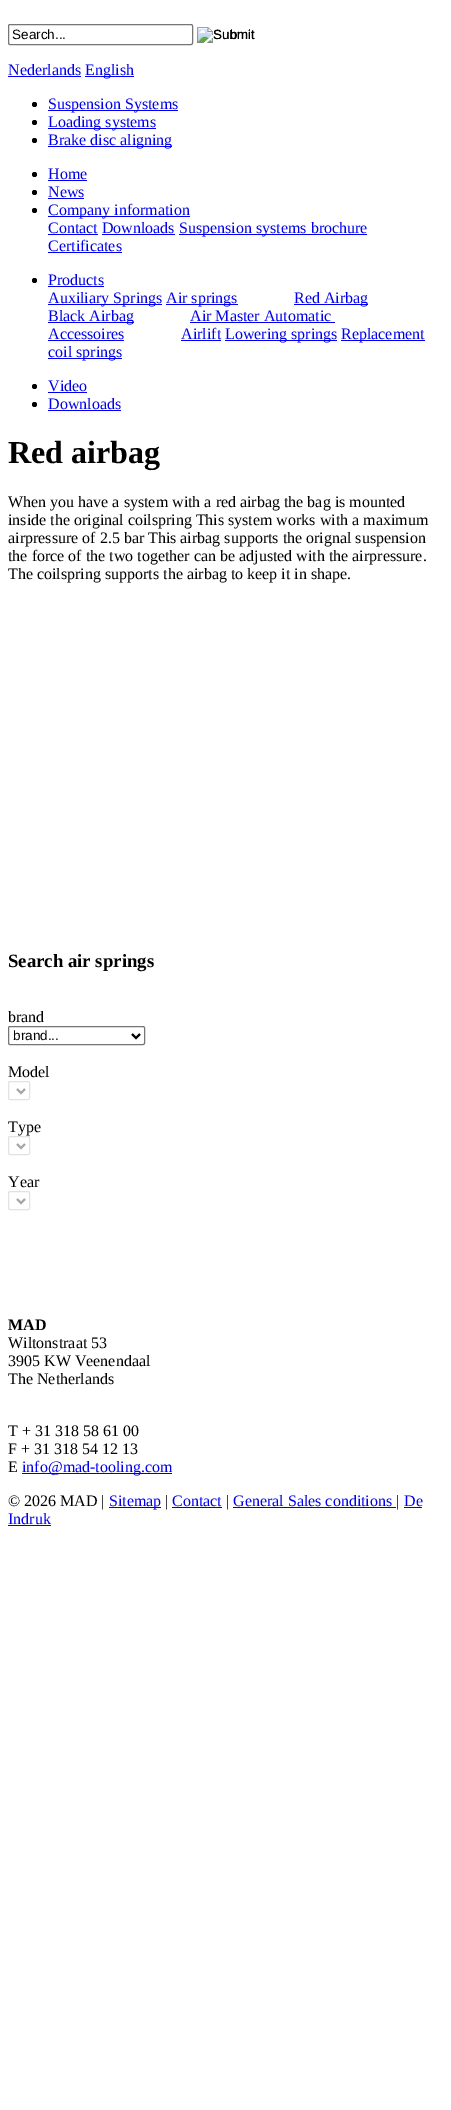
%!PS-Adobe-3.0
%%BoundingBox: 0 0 451 2110
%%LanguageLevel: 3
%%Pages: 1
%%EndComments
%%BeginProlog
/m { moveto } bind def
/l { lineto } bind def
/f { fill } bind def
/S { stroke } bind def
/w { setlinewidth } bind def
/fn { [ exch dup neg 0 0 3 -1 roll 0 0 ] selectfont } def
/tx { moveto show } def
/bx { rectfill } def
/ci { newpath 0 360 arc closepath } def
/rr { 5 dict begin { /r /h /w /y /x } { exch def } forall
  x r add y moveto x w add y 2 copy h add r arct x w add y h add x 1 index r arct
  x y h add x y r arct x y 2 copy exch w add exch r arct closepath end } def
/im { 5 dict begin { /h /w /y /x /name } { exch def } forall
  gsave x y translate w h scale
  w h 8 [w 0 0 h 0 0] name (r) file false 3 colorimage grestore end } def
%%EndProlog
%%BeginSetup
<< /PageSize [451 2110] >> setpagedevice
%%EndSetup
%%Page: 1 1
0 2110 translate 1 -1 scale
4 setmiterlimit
1 setgray
0 0 451 2110 bx
0.463 setgray
8.5 24.5 184 20 1.5 rr S
/LiberationSans-Regular 13.5 fn
0 setgray
(Search...) 12 39 tx
(image0.raw) 197 27 57 16 im
(Submit) 213 39 tx
/LiberationSerif-Regular 16 fn
0 0 0.933 setrgbcolor
(Nederlands) 8 75 tx
8 76 73 1 bx
85 76 49 1 bx
(English) 85 75 tx
0 setgray
34.5 104.5 2.5 ci f
0 0 0.933 setrgbcolor
48 110 130 1 bx
(Suspension Systems) 48 109 tx
0 setgray
34.5 122.5 2.5 ci f
0 0 0.933 setrgbcolor
48 128 108 1 bx
(Loading systems) 48 127 tx
0 setgray
34.5 140.5 2.5 ci f
0 0 0.933 setrgbcolor
48 146 124 1 bx
(Brake disc aligning) 48 145 tx
0 setgray
34.5 174.5 2.5 ci f
0 0 0.933 setrgbcolor
(Home) 48 179 tx
48 180 39 1 bx
0 setgray
34.5 192.5 2.5 ci f
0 0 0.933 setrgbcolor
(News) 48 197 tx
48 198 36 1 bx
0 setgray
34.5 210.5 2.5 ci f
0 0 0.933 setrgbcolor
48 216 142 1 bx
(Company information) 48 215 tx
(Contact Downloads) 48 233 tx
48 234 50 1 bx
179 234 188 1 bx
(Suspension systems brochure) 179 233 tx
102 234 73 1 bx
(Certificates) 48 251 tx
48 252 74 1 bx
0 setgray
34.5 280.5 2.5 ci f
0 0 0.933 setrgbcolor
(Products) 48 285 tx
48 286 56 1 bx
48 304 114 1 bx
(Auxiliary Springs) 48 303 tx
166 304 72 1 bx
(Air springs) 166 303 tx
294 304 74 1 bx
(Red Airbag) 294 303 tx
48 322 86 1 bx
(Black Airbag) 48 321 tx
(Air Master Automatic) 190 321 tx
190 322 145 1 bx
(Accessoires) 48 339 tx
48 340 76 1 bx
(Airlift) 181 339 tx
181 340 40 1 bx
225 340 112 1 bx
(Lowering springs) 225 339 tx
341 340 84 1 bx
(Replacement) 341 339 tx
48 358 74 1 bx
(coil springs) 48 357 tx
0 setgray
34.5 386.5 2.5 ci f
0 0 0.933 setrgbcolor
(Video) 48 391 tx
48 392 39 1 bx
0 setgray
34.5 404.5 2.5 ci f
0 0 0.933 setrgbcolor
(Downloads) 48 409 tx
48 410 73 1 bx
/LiberationSerif-Bold 32 fn
0 setgray
(Red airbag) 8 463 tx
/LiberationSerif-Regular 16 fn
(When you have a system with a red airbag the bag is mounted) 8 507 tx
(inside the original coilspring This system works with a maximum) 8 525 tx
(airpressure of 2.5 bar This airbag supports the orignal suspension) 8 543 tx
(the force of the two together can be adjusted with the airpressure.) 8 561 tx
(The coilspring supports the airbag to keep it in shape.) 8 579 tx
/LiberationSerif-Bold 18.75 fn
(Search air springs) 8 967 tx
/LiberationSerif-Regular 16 fn
(brand) 8 1022 tx
0.463 setgray
8.5 1026.5 136 18 1.5 rr S
0 setgray
2 w
132 1034 m 136 1038 l 140 1034 l S
/LiberationSans-Regular 13.5 fn
(brand...) 13 1040 tx
/LiberationSerif-Regular 16 fn
(Model) 8 1077 tx
0.886 setgray
1 w
8.5 1081.5 21 18 1.5 rr S
0.651 setgray
2 w
17 1089 m 21 1093 l 25 1089 l S
0 setgray
(Type) 8 1132 tx
0.886 setgray
1 w
8.5 1136.5 21 18 1.5 rr S
0.651 setgray
2 w
17 1144 m 21 1148 l 25 1144 l S
0 setgray
(Year) 8 1187 tx
0.886 setgray
1 w
8.5 1191.5 21 18 1.5 rr S
0.651 setgray
2 w
17 1199 m 21 1203 l 25 1199 l S
/LiberationSerif-Bold 16 fn
0 setgray
(MAD) 8 1330 tx
/LiberationSerif-Regular 16 fn
(Wiltonstraat 53) 8 1348 tx
(3905 KW Veenendaal) 8 1366 tx
(The Netherlands) 8 1384 tx
(T + 31 318 58 61 00) 8 1436 tx
(F + 31 318 54 12 13) 8 1454 tx
(E) 8 1472 tx
0 0 0.933 setrgbcolor
22 1473 150 1 bx
(info@mad-tooling.com) 22 1472 tx
0 setgray
(© 2026 MAD |) 8 1506 tx
0 0 0.933 setrgbcolor
109 1507 52 1 bx
(Sitemap) 109 1506 tx
0 setgray
(|) 165 1506 tx
0 0 0.933 setrgbcolor
(Contact) 172 1506 tx
172 1507 50 1 bx
0 setgray
(|) 226 1506 tx
0 0 0.933 setrgbcolor
(General Sales conditions) 233 1506 tx
233 1507 163 1 bx
0 setgray
(|) 396 1506 tx
0 0 0.933 setrgbcolor
(De) 404 1506 tx
404 1507 18 1 bx
(Indruk) 8 1524 tx
8 1525 43 1 bx
showpage
%%EOF
